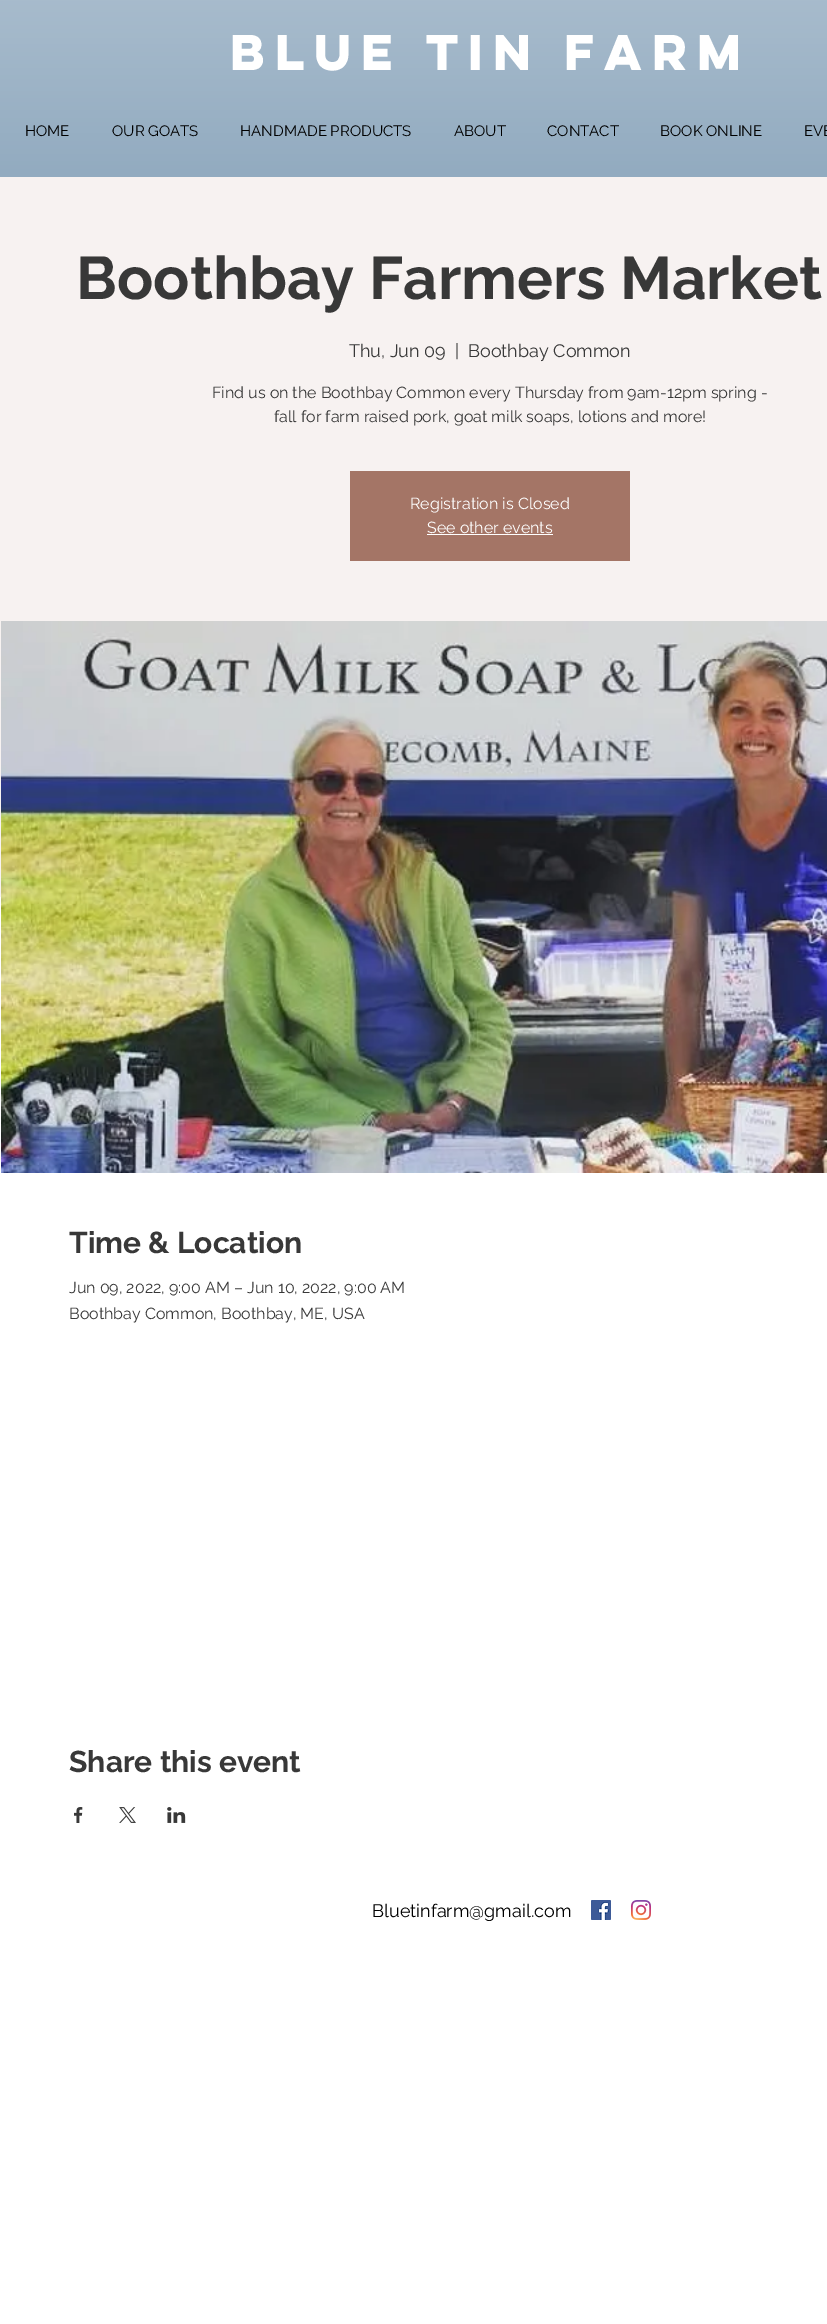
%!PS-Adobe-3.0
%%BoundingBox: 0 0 827 2324
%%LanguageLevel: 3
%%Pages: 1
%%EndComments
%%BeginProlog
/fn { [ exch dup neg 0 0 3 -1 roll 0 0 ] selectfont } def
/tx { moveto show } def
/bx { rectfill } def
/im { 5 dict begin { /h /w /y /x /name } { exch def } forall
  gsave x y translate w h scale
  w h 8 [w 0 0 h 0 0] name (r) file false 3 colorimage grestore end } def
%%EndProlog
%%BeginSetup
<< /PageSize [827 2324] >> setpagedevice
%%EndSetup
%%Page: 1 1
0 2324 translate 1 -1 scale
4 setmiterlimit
1 setgray
0 0 827 2324 bx
0.533 0.639 0.729 setrgbcolor
0 0 827 177 bx
(image0.raw) 0 0 827 177 im
/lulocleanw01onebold-Bold 45 fn
1 setgray
(BLUE TIN FARM) 230 70 tx
/Raleway-Regular 15 fn
0 setgray
(HOME) 25 136 tx
(OUR GOATS) 112 136 tx
(HANDMADE PRODUCTS) 240 136 tx
(ABOUT) 454 136 tx
(CONTACT) 547 136 tx
(BOOK ONLINE) 660 136 tx
(EVE) 804 136 tx
0.969 0.949 0.945 setrgbcolor
0 177 827 720 bx
/Raleway-Bold 60 fn
0.22 setgray
(Boothbay Farmers Market) 76 299 tx
/Raleway-Regular 18 fn
(Thu, Jun 09) 349 357 tx
(|) 455 357 tx
(Boothbay Common) 468 357 tx
/Raleway-Regular 16 fn
(Find us on the Boothbay Common every Thursday from 9am-12pm spring -) 212 398 tx
(fall for farm raised pork, goat milk soaps, lotions and more!) 274 422 tx
0.643 0.459 0.4 setrgbcolor
350 471 280 90 bx
1 setgray
(Registration is Closed) 410 509 tx
(See other events) 427 533 tx
427 534 126 1 bx
(image1.raw) 1 621 826 552 im
/Raleway-Bold 30 fn
0.22 setgray
(Time & Location) 69 1253 tx
/Raleway-Regular 16 fn
(Jun 09, 2022, 9:00 AM – Jun 10, 2022, 9:00 AM) 69 1293 tx
(Boothbay Common, Boothbay, ME, USA) 69 1319 tx
/Raleway-Bold 30 fn
(Share this event) 69 1772 tx
(image2.raw) 74 1807 9 16 im
(image3.raw) 119 1807 17 16 im
(image4.raw) 167 1807 19 16 im
/Raleway-Regular 18 fn
0 setgray
(Bluetinfarm@gmail.com) 372 1917 tx
(image5.raw) 591 1900 20 20 im
(image6.raw) 631 1900 20 20 im
showpage
%%EOF
